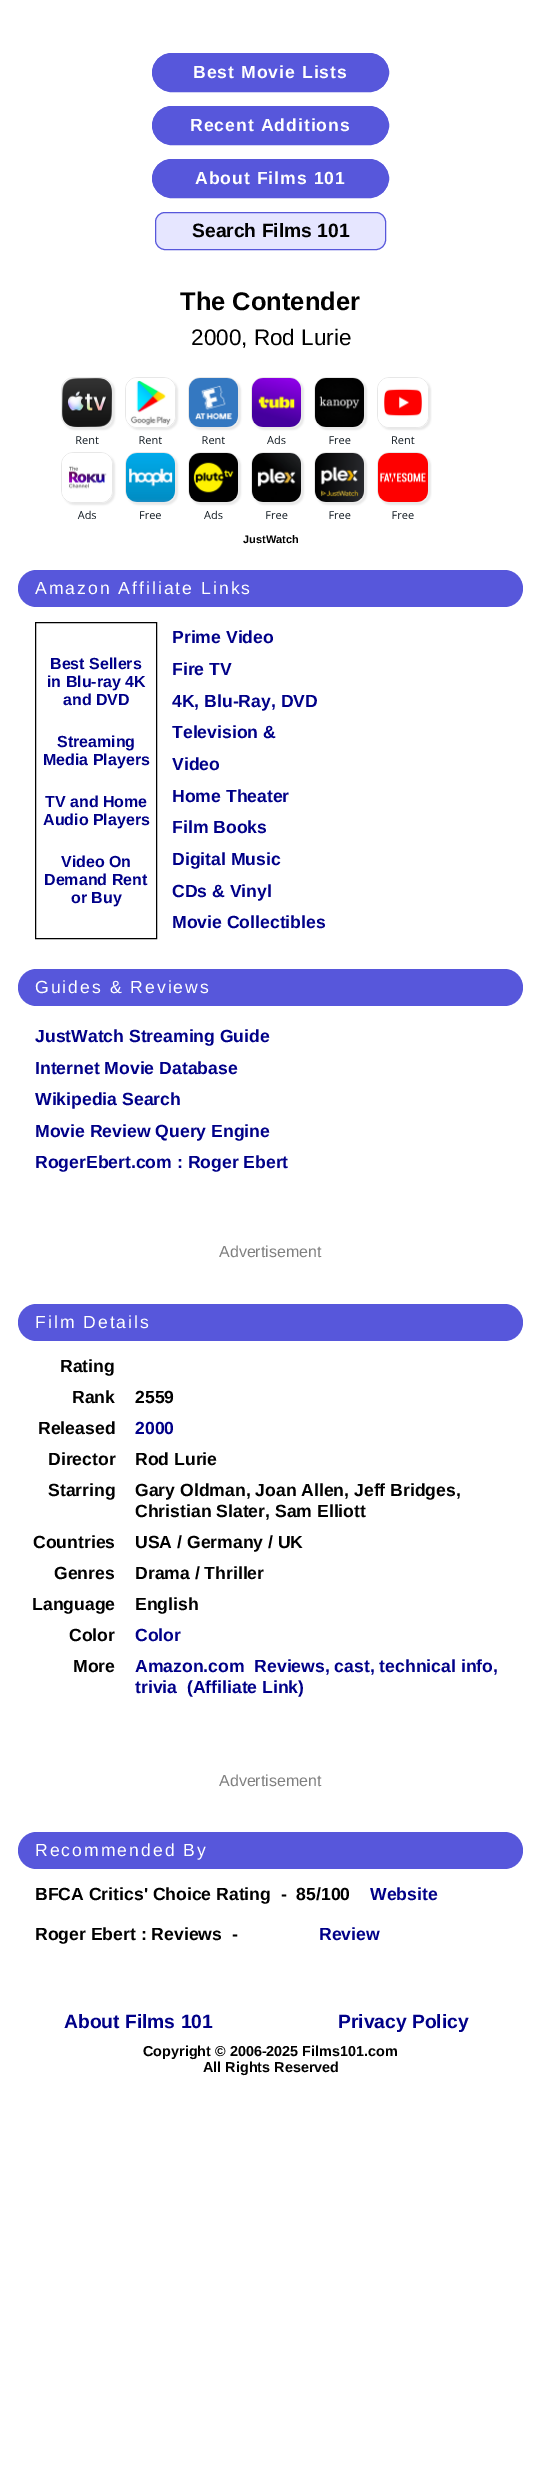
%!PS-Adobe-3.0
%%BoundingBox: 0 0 541 2486
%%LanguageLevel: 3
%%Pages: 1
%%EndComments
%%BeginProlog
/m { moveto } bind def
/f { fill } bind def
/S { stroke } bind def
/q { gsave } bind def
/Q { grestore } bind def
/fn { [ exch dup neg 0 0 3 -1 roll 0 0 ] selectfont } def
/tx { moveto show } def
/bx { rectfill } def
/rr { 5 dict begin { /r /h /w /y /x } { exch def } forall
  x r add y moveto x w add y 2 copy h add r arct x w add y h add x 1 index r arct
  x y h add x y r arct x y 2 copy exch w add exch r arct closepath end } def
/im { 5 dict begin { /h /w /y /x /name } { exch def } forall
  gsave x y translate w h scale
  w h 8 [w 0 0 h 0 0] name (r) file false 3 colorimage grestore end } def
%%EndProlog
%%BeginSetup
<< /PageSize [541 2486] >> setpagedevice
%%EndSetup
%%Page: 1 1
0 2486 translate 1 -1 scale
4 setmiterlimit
1 setgray
0 0 541 2486 bx
0.341 0.341 0.859 setrgbcolor
152.5 53.5 236 38 19 rr q f Q
S
/LiberationSans-Bold 17.6 fn
1 setgray
193 78 m 1 0 (Best Movie Lists) ashow
0.341 0.341 0.859 setrgbcolor
152.5 106.5 236 38 19 rr q f Q
S
1 setgray
190 131 m 1 0 (Recent Additions) ashow
0.341 0.341 0.859 setrgbcolor
152.5 159.5 236 38 19 rr q f Q
S
1 setgray
195 184 m 1 0 (About Films 101) ashow
0.902 0.902 1 setrgbcolor
155.5 212.5 230 37 9.5 rr q f Q
0.341 0.341 0.859 setrgbcolor
S
/LiberationSans-Bold 19.25 fn
0 setgray
(Search Films 101) 192 237 tx
/LiberationSans-Bold 25.5 fn
(The Contender) 180 310 tx
/LiberationSans-Regular 22.5 fn
(2000, Rod Lurie) 191 345 tx
(image0.raw) 61 377 371 142 im
/LiberationSans-Bold 11 fn
(JustWatch) 243 543 tx
0.341 0.341 0.859 setrgbcolor
18 570 505 37 18.5 rr f
/LiberationSans-Regular 17.6 fn
1 setgray
35 594 m 2 0 (Amazon Affiliate Links) ashow
0 setgray
35.5 622.5 121 316 rectstroke
/LiberationSans-Bold 16 fn
0 0 0.533 setrgbcolor
(Best Sellers) 50 669 tx
(in Blu-ray 4K) 47 687 tx
(and DVD) 63 705 tx
(Streaming) 57 747 tx
(Media Players) 43 765 tx
(TV and Home) 45 807 tx
(Audio Players) 43 825 tx
(Video On) 61 867 tx
(Demand Rent) 44 885 tx
(or Buy) 71 903 tx
/LiberationSans-Bold 17.6 fn
(Prime Video) 172 643 tx
(Fire TV) 172 675 tx
(4K, Blu-Ray, DVD) 172 707 tx
(Television &) 172 738 tx
(Video) 172 770 tx
(Home Theater) 172 802 tx
(Film Books) 172 833 tx
(Digital Music) 172 865 tx
(CDs & Vinyl) 172 897 tx
(Movie Collectibles) 172 928 tx
0.341 0.341 0.859 setrgbcolor
18 969 505 37 18.5 rr f
/LiberationSans-Regular 17.6 fn
1 setgray
35 993 m 2 0 (Guides & Reviews) ashow
/LiberationSans-Bold 17.6 fn
0 0 0.533 setrgbcolor
(JustWatch Streaming Guide) 35 1042 tx
(Internet Movie Database) 35 1074 tx
(Wikipedia Search) 35 1105 tx
(Movie Review Query Engine) 35 1137 tx
(RogerEbert.com : Roger Ebert) 35 1168 tx
/LiberationSans-Regular 16 fn
0.502 setgray
(Advertisement) 219 1257 tx
0.341 0.341 0.859 setrgbcolor
18 1304 505 37 18.5 rr f
/LiberationSans-Regular 17.6 fn
1 setgray
35 1328 m 2 0 (Film Details) ashow
/LiberationSans-Bold 17.6 fn
0 setgray
(Rating) 60 1372 tx
(Rank) 72 1403 tx
(2559) 135 1403 tx
(Released) 38 1434 tx
0 0 0.533 setrgbcolor
(2000) 135 1434 tx
0 setgray
(Director) 48 1465 tx
(Rod Lurie) 135 1465 tx
(Starring) 48 1496 tx
(Gary Oldman, Joan Allen, Jeff Bridges,) 135 1496 tx
(Christian Slater, Sam Elliott) 135 1517 tx
(Countries) 33 1548 tx
(USA / Germany / UK) 135 1548 tx
(Genres) 54 1579 tx
(Drama / Thriller) 135 1579 tx
(Language) 32 1610 tx
(English) 135 1610 tx
(Color) 69 1641 tx
0 0 0.533 setrgbcolor
(Color) 135 1641 tx
0 setgray
(More) 73 1672 tx
0 0 0.533 setrgbcolor
(Amazon.com  Reviews, cast, technical info,) 135 1672 tx
(trivia  \(Affiliate Link\)) 135 1693 tx
/LiberationSans-Regular 16 fn
0.502 setgray
(Advertisement) 219 1786 tx
0.341 0.341 0.859 setrgbcolor
18 1832 505 37 18.5 rr f
/LiberationSans-Regular 17.6 fn
1 setgray
35 1856 m 2 0 (Recommended By) ashow
/LiberationSans-Bold 17.6 fn
0 setgray
(BFCA Critics' Choice Rating  -  85/100) 35 1900 tx
0 0 0.533 setrgbcolor
(Website) 370 1900 tx
0 setgray
(Roger Ebert : Reviews  -) 35 1940 tx
0 0 0.533 setrgbcolor
(Review) 319 1940 tx
/LiberationSans-Bold 19.25 fn
(About Films 101) 64 2028 tx
(Privacy Policy) 338 2028 tx
/LiberationSans-Bold 14.4 fn
0 setgray
(Copyright © 2006-2025 Films101.com) 143 2056 tx
(All Rights Reserved) 203 2072 tx
showpage
%%EOF
